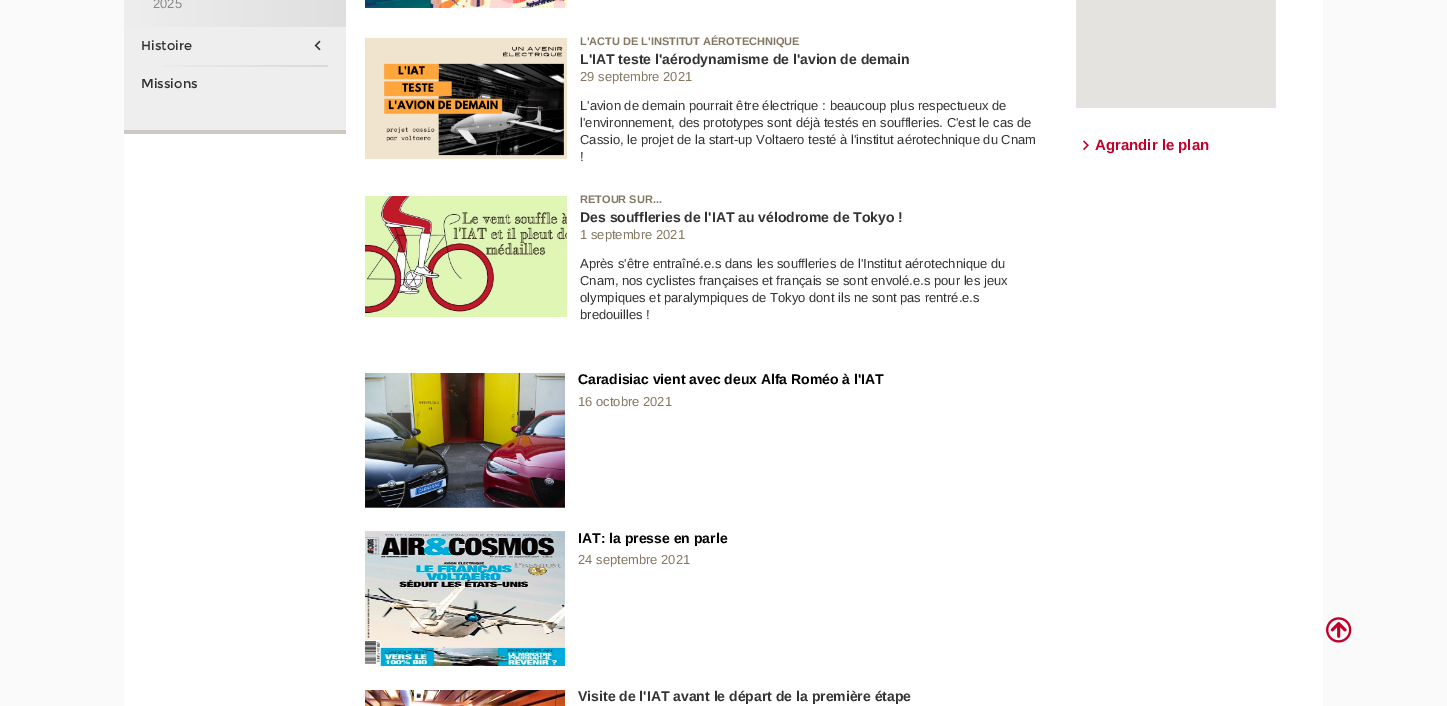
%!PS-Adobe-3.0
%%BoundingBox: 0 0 1447 706
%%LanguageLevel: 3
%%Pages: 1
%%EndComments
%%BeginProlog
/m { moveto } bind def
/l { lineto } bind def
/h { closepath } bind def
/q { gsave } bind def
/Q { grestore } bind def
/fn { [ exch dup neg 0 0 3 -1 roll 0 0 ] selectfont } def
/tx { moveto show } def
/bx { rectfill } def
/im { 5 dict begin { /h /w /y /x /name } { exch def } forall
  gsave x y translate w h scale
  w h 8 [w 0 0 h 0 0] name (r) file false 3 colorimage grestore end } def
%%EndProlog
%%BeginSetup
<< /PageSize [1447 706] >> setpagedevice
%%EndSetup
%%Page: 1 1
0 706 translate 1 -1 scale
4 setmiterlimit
0.98 setgray
0 0 1447 706 bx
1 setgray
124 0 1199 706 bx
0.933 setgray
124 27 222 103 bx
0.812 0.784 0.753 setrgbcolor
124 130 222 4 bx
q 124 0 m 346 0 l 346 27 l 124 27 l h clip newpath
<< /ShadingType 2 /ColorSpace /DeviceRGB /Coords [124 -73 346 -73] /Extend [true true] /Function << /FunctionType 2 /Domain [0 1] /C0 [0.933 0.933 0.933] /C1 [0.875 0.875 0.875] /N 1 >> >> shfill Q
/LiberationSans-Regular 13 fn
0.533 setgray
(2025) 153 8 tx
/Montserrat-Regular 13 fn
0.2 setgray
(Histoire) 141 50 tx
(image0.raw) 314 40 7 11 im
q 164 65 m 328 65 l 328 67 l 164 67 l h clip newpath
<< /ShadingType 2 /ColorSpace /DeviceRGB /Coords [141 66 328 66] /Extend [true true] /Function << /FunctionType 2 /Domain [0 1] /C0 [0.933 0.933 0.933] /C1 [0.855 0.855 0.855] /N 1 >> >> shfill Q
(Missions) 141 88 tx
(image1.raw) 365 0 202 8 im
(image2.raw) 365 38 202 121 im
/LiberationSans-Bold 11 fn
0.522 0.467 0.38 setrgbcolor
(L'ACTU DE L'INSTITUT AÉROTECHNIQUE) 580 45 tx
/LiberationSans-Bold 14 fn
0.2 setgray
(L'IAT teste l'aérodynamisme de l'avion de demain) 580 64 tx
/LiberationSans-Regular 13 fn
0.522 0.467 0.38 setrgbcolor
(29 septembre 2021) 580 81 tx
0.2 setgray
(L'avion de demain pourrait être électrique : beaucoup plus respectueux de) 580 110 tx
(l'environnement, des prototypes sont déjà testés en souffleries. C'est le cas de) 580 127 tx
(Cassio, le projet de la start-up Voltaero testé à l'institut aérotechnique du Cnam) 580 144 tx
(!) 580 161 tx
(image3.raw) 365 196 202 121 im
/LiberationSans-Bold 11 fn
0.522 0.467 0.38 setrgbcolor
(RETOUR SUR...) 580 203 tx
/LiberationSans-Bold 14 fn
0.2 setgray
(Des souffleries de l'IAT au vélodrome de Tokyo !) 580 222 tx
/LiberationSans-Regular 13 fn
0.522 0.467 0.38 setrgbcolor
(1 septembre 2021) 580 239 tx
0.2 setgray
(Après s'être entraîné.e.s dans les souffleries de l'Institut aérotechnique du) 580 268 tx
(Cnam, nos cyclistes françaises et français se sont envolé.e.s pour les jeux) 580 285 tx
(olympiques et paralympiques de Tokyo dont ils ne sont pas rentré.e.s) 580 302 tx
(bredouilles !) 580 319 tx
(image4.raw) 365 373 200 135 im
/LiberationSans-Bold 14 fn
0 setgray
(Caradisiac vient avec deux Alfa Roméo à l'IAT) 578 384 tx
/LiberationSans-Regular 13 fn
0.522 0.467 0.38 setrgbcolor
(16 octobre 2021) 578 406 tx
(image5.raw) 365 531 200 135 im
/LiberationSans-Bold 14 fn
0 setgray
(IAT: la presse en parle) 578 543 tx
/LiberationSans-Regular 13 fn
0.522 0.467 0.38 setrgbcolor
(24 septembre 2021) 578 564 tx
(image6.raw) 365 690 200 16 im
/LiberationSans-Bold 14 fn
0.2 setgray
(Visite de l'IAT avant le départ de la première étape) 578 701 tx
0.898 0.89 0.875 setrgbcolor
1076 0 200 108 bx
(image7.raw) 1083 140 6 11 im
/LiberationSans-Bold 15 fn
0.757 0 0.165 setrgbcolor
(Agrandir le plan) 1095 150 tx
(image8.raw) 1326 617 26 26 im
showpage
%%EOF
